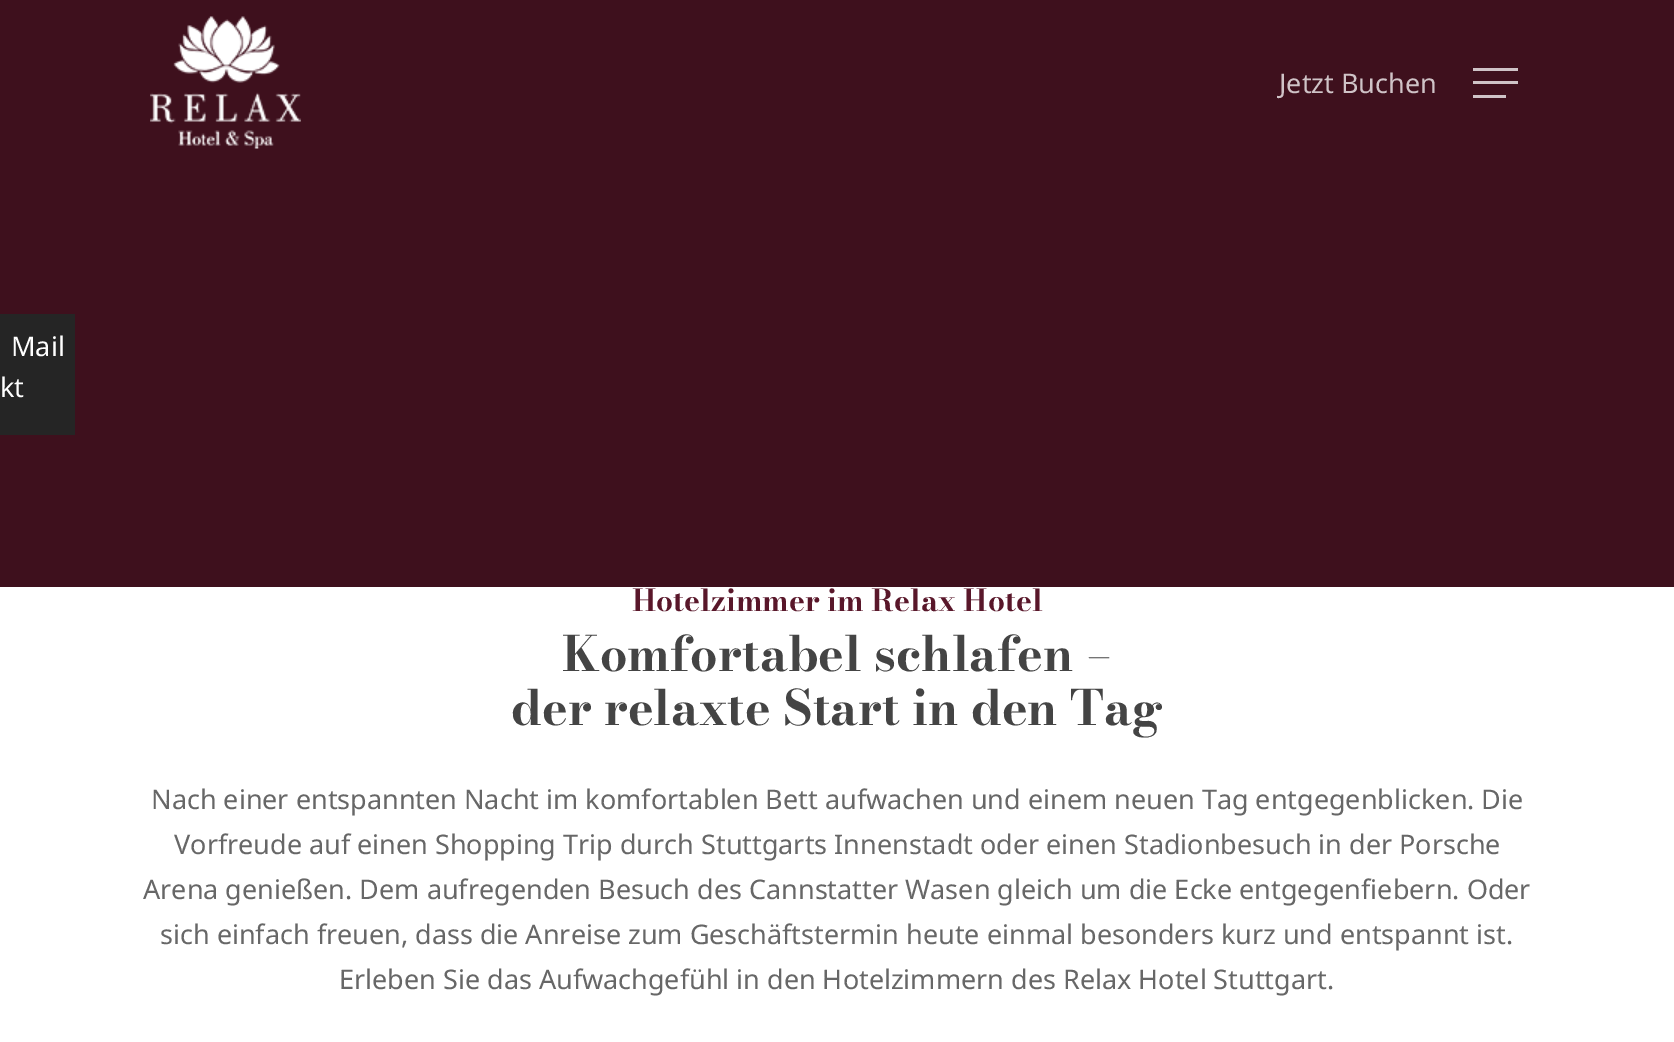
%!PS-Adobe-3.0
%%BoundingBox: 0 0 1674 1042
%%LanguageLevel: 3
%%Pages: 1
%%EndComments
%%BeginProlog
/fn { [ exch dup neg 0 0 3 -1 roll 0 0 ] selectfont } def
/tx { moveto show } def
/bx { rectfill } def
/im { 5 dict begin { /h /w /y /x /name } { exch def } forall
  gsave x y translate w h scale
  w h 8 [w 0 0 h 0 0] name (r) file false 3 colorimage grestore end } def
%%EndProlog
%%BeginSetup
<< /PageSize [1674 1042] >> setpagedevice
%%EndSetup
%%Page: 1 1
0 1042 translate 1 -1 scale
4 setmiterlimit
1 setgray
0 0 1674 1042 bx
0.243 0.063 0.114 setrgbcolor
0 0 1674 587 bx
0.145 setgray
0 314 75 121 bx
/NotoSans-Regular 27 fn
1 setgray
(Mail) 11 356 tx
(kt) 0 397 tx
(image0.raw) 150 16 151 133 im
0.812 0.765 0.78 setrgbcolor
(Jetzt Buchen) 1279 93 tx
1473 68 45 3 bx
1473 95 33 3 bx
1473 81 45 3 bx
/BodoniModa-Bold 30 fn
0.349 0.09 0.165 setrgbcolor
(Hotelzimmer im Relax Hotel) 632 611 tx
/BodoniModa-Bold 48.4 fn
0.267 setgray
(Komfortabel schlafen –) 562 671 tx
(der relaxte Start in den Tag) 511 725 tx
/NotoSans-Regular 27 fn
0.404 setgray
(Nach einer entspannten Nacht im komfortablen Bett aufwachen und einem neuen Tag entgegenblicken. Die) 151 809 tx
(Vorfreude auf einen Shopping Trip durch Stuttgarts Innenstadt oder einen Stadionbesuch in der Porsche) 174 854 tx
(Arena genießen. Dem aufregenden Besuch des Cannstatter Wasen gleich um die Ecke entgegenfiebern. Oder) 143 899 tx
(sich einfach freuen, dass die Anreise zum Geschäftstermin heute einmal besonders kurz und entspannt ist.) 160 944 tx
(Erleben Sie das Aufwachgefühl in den Hotelzimmern des Relax Hotel Stuttgart.) 339 989 tx
showpage
%%EOF
